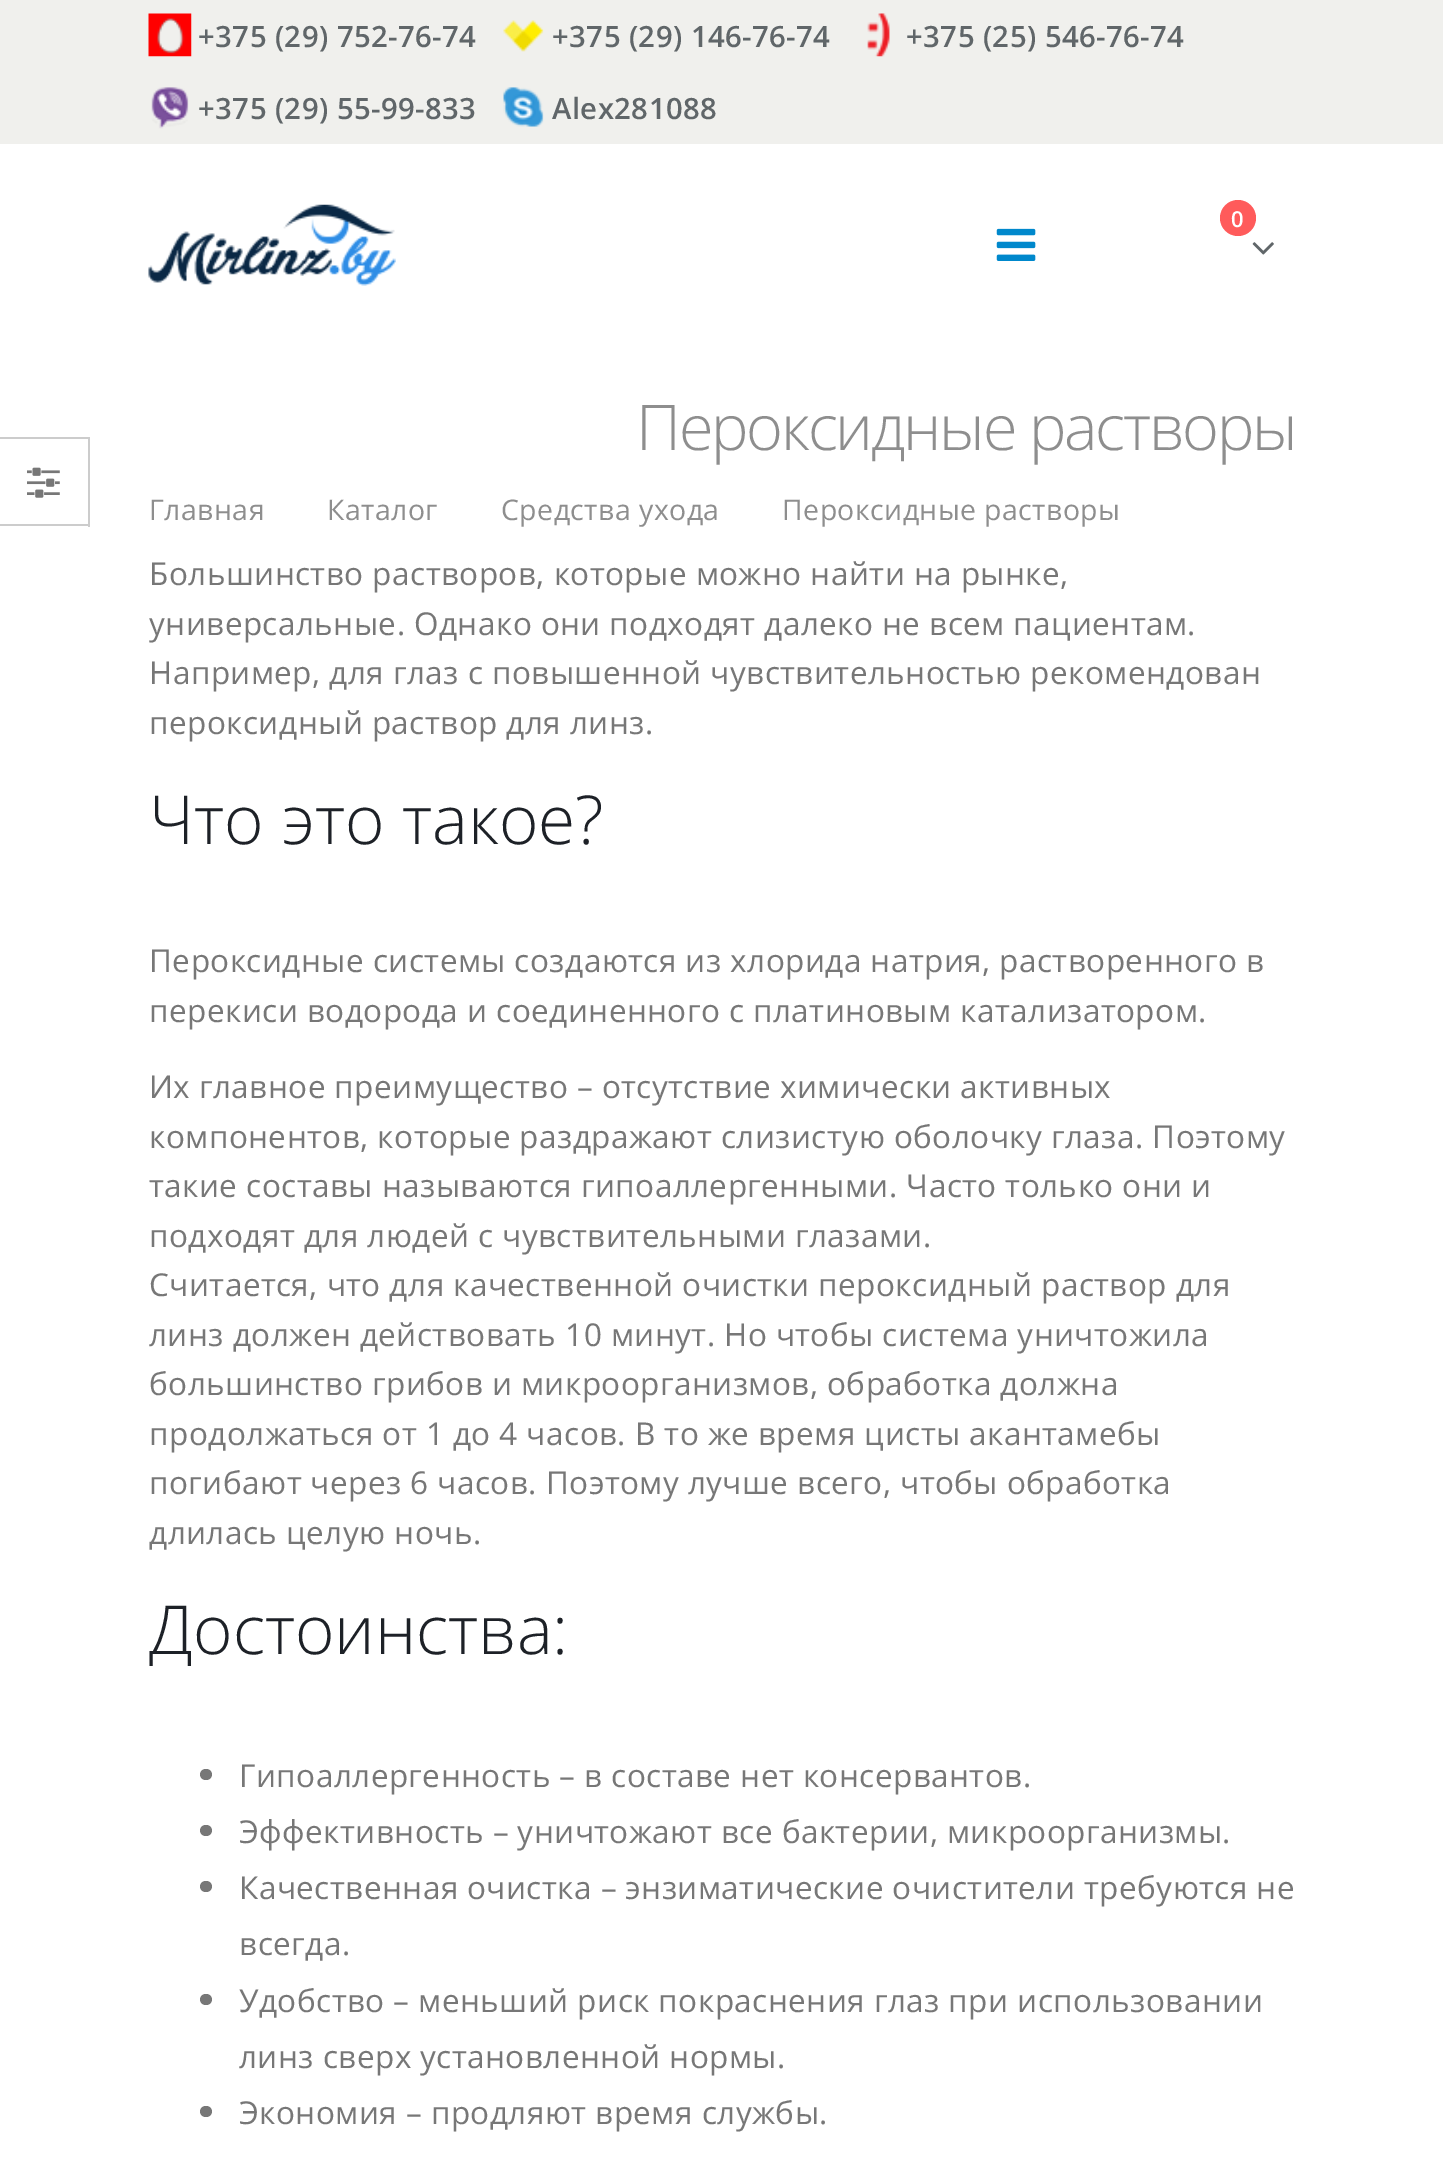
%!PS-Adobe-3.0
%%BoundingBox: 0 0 1443 2181
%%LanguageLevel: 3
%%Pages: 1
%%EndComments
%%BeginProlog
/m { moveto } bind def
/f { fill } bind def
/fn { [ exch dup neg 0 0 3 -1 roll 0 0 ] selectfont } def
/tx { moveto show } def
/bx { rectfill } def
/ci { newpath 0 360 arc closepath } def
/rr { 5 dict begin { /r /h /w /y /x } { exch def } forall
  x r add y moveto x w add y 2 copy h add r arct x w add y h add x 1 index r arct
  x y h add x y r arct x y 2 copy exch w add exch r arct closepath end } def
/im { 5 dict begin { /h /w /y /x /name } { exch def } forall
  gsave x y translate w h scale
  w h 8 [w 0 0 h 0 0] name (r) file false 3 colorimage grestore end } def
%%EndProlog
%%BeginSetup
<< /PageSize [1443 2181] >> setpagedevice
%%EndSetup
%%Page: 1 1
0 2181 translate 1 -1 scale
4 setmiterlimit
1 setgray
0 0 1443 2181 bx
0.8 setgray
0 437 90 2 bx
88 437 2 90 bx
0 524 90 2 bx
(image0.raw) 27 467 33 31 im
0.941 0.941 0.929 setrgbcolor
0 0 1443 144 bx
(image1.raw) 148 13 44 44 im
/OpenSans-SemiBold 29.25 fn
0.376 0.4 0.412 setrgbcolor
198 47 m 0.45 0 (+375 \(29\) 752-76-74) ashow
(image2.raw) 503 20 41 32 im
552 47 m 0.45 0 (+375 \(29\) 146-76-74) ashow
(image3.raw) 867 13 23 44 im
906 47 m 0.45 0 (+375 \(25\) 546-76-74) ashow
(image4.raw) 151 87 38 42 im
198 119 m 0.45 0 (+375 \(29\) 55-99-833) ashow
(image5.raw) 503 87 41 40 im
552 119 m 0.45 0 (Alex281088) ashow
(image6.raw) 148 204 248 82 im
1 0.357 0.357 setrgbcolor
1238 218 18 ci f
/OpenSans-SemiBold 22 fn
1 setgray
1231 227 m 0.45 0 (0) ashow
(image7.raw) 1252 242 22 13 im
(image8.raw) 996 228 40 33 im
/OpenSans-Light 63 fn
0.557 setgray
636 450 m -2.25 0 (Пероксидные растворы) ashow
/OpenSans-Regular 28.4 fn
149 520 m 0.45 0 (Главная) ashow
327 520 m 0.45 0 (Каталог) ashow
501 520 m 0.45 0 (Средства ухода) ashow
782 520 m 0.45 0 (Пероксидные растворы) ashow
/OpenSans-Regular 31.5 fn
0.467 setgray
149 585 m 0.45 0 (Большинство растворов, которые можно найти на рынке,) ashow
149 635 m 0.45 0 (универсальные. Однако они подходят далеко не всем пациентам.) ashow
149 684 m 0.45 0 (Например, для глаз с повышенной чувствительностью рекомендован) ashow
149 734 m 0.45 0 (пероксидный раствор для линз.) ashow
/OpenSans-Light 67.5 fn
0.114 0.129 0.153 setrgbcolor
(Что это такое?) 149 844 tx
/OpenSans-Regular 31.5 fn
0.467 setgray
149 972 m 0.45 0 (Пероксидные системы создаются из хлорида натрия, растворенного в) ashow
149 1022 m 0.45 0 (перекиси водорода и соединенного с платиновым катализатором.) ashow
149 1098 m 0.45 0 (Их главное преимущество – отсутствие химически активных) ashow
149 1148 m 0.45 0 (компонентов, которые раздражают слизистую оболочку глаза. Поэтому) ashow
149 1197 m 0.45 0 (такие составы называются гипоаллергенными. Часто только они и) ashow
149 1247 m 0.45 0 (подходят для людей с чувствительными глазами.) ashow
149 1296 m 0.45 0 (Считается, что для качественной очистки пероксидный раствор для) ashow
149 1346 m 0.45 0 (линз должен действовать 10 минут. Но чтобы система уничтожила) ashow
149 1395 m 0.45 0 (большинство грибов и микроорганизмов, обработка должна) ashow
149 1445 m 0.45 0 (продолжаться от 1 до 4 часов. В то же время цисты акантамебы) ashow
149 1494 m 0.45 0 (погибают через 6 часов. Поэтому лучше всего, чтобы обработка) ashow
149 1544 m 0.45 0 (длилась целую ночь.) ashow
/OpenSans-Light 67.5 fn
0.114 0.129 0.153 setrgbcolor
(Достоинства:) 149 1654 tx
0.467 setgray
200 1769 12 11 5.5 rr f
/OpenSans-Regular 31.5 fn
239 1787 m 0.45 0 (Гипоаллергенность – в составе нет консервантов.) ashow
200 1825 12 11 5.5 rr f
239 1843 m 0.45 0 (Эффективность – уничтожают все бактерии, микроорганизмы.) ashow
200 1881 12 11 5.5 rr f
239 1899 m 0.45 0 (Качественная очистка – энзиматические очистители требуются не) ashow
239 1955 m 0.45 0 (всегда.) ashow
200 1994 12 11 5.5 rr f
239 2012 m 0.45 0 (Удобство – меньший риск покраснения глаз при использовании) ashow
239 2068 m 0.45 0 (линз сверх установленной нормы.) ashow
200 2106 12 11 5.5 rr f
239 2124 m 0.45 0 (Экономия – продляют время службы.) ashow
showpage
%%EOF
